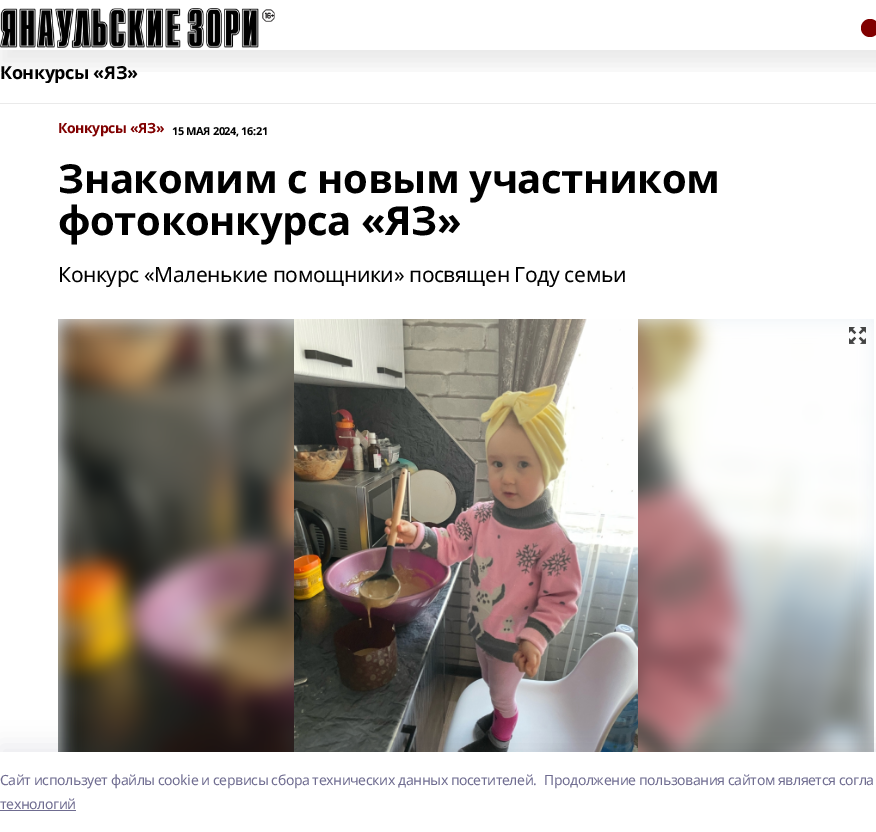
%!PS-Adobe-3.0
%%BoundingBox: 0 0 876 832
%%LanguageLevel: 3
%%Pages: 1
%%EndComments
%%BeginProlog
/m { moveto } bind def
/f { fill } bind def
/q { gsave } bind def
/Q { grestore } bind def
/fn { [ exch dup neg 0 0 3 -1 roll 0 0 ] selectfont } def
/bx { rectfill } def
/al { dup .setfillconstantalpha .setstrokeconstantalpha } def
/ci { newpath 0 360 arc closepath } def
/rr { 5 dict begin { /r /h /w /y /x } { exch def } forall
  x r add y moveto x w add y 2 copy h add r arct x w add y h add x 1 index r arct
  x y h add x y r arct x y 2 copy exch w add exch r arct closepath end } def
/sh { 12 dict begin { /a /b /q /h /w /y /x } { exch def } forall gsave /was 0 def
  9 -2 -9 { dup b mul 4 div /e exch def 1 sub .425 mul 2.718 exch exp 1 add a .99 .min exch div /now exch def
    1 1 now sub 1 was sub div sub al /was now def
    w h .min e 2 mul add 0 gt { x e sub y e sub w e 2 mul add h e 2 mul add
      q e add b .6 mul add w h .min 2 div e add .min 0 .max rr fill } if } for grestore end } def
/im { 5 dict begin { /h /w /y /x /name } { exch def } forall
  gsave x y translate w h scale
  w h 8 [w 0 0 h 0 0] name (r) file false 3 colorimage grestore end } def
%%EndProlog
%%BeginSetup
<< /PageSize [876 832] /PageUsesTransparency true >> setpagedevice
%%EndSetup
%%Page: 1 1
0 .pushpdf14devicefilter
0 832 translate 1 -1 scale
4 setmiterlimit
1 setgray
0 0 876 832 bx
q
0 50 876 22 rectclip
0 setgray
0 15 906 50 0 10 0.08 sh
Q
(image0.raw) 0 8 275 40 im
0.502 0 0 setrgbcolor
870 28 9 ci f
0.918 setgray
0 103 876 1 bx
q
0 62 240 21 rectclip
/NotoSans-Bold 18 fn
0 setgray
0 79 m -0.42 0 (Конкурсы «ЯЗ») ashow
Q
/NotoSans-Bold 14 fn
0.502 0 0 setrgbcolor
58 133 m -0.42 0 (Конкурсы «ЯЗ») ashow
/NotoSans-Bold 11 fn
0 setgray
172 135 m -0.42 0 (15 МАЯ 2024, 16:21) ashow
/NotoSans-Bold 40 fn
58 193 m -0.42 0 (Знакомим с новым участником) ashow
58 235 m -0.42 0 (фотоконкурса «ЯЗ») ashow
/NotoSans-Regular 21 fn
58 282 m -0.42 0 (Конкурс «Маленькие помощники» посвящен Году семьи) ashow
0.929 0.949 0.969 setrgbcolor
58 319 816 433 bx
(image1.raw) 58 319 816 433 im
(image2.raw) 294 319 344 433 im
(image3.raw) 849 327 17 17 im
0.078 0.078 0.169 setrgbcolor
0 746 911 80 0 11.5 0.08 sh
1 setgray
0 752 876 80 bx
/NotoSans-Regular 14 fn
0.435 0.424 0.565 setrgbcolor
0 785 m -0.42 0 (Cайт использует файлы cookie и сервисы сбора технических данных посетителей.) ashow
544 785 m -0.42 0 (Продолжение пользования сайтом является согла) ashow
0 809 m -0.42 0 (технологий) ashow
0 810 76 1 bx
.poppdf14devicefilter showpage
%%EOF
